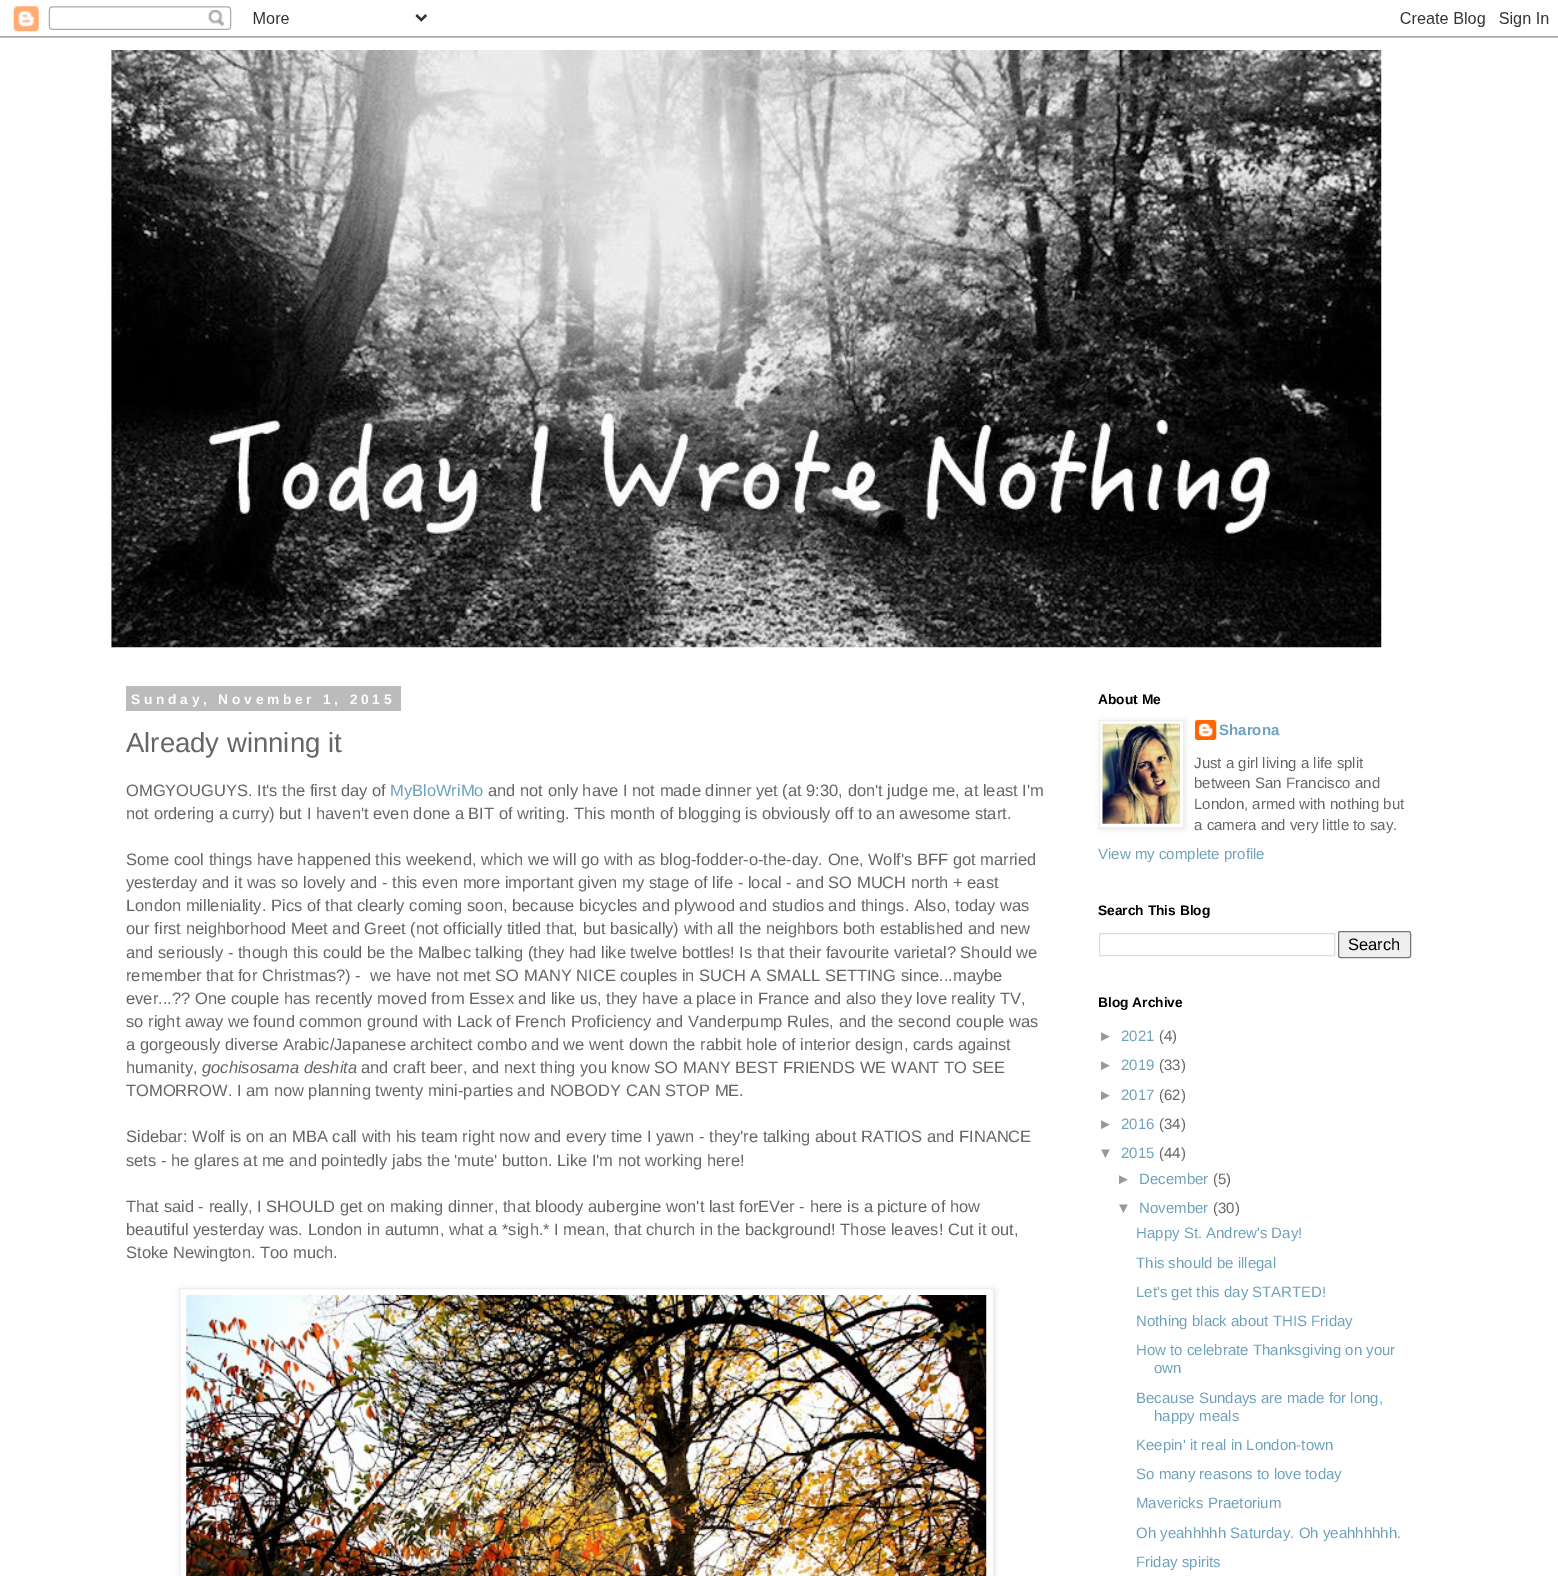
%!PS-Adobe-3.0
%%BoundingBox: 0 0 1558 1576
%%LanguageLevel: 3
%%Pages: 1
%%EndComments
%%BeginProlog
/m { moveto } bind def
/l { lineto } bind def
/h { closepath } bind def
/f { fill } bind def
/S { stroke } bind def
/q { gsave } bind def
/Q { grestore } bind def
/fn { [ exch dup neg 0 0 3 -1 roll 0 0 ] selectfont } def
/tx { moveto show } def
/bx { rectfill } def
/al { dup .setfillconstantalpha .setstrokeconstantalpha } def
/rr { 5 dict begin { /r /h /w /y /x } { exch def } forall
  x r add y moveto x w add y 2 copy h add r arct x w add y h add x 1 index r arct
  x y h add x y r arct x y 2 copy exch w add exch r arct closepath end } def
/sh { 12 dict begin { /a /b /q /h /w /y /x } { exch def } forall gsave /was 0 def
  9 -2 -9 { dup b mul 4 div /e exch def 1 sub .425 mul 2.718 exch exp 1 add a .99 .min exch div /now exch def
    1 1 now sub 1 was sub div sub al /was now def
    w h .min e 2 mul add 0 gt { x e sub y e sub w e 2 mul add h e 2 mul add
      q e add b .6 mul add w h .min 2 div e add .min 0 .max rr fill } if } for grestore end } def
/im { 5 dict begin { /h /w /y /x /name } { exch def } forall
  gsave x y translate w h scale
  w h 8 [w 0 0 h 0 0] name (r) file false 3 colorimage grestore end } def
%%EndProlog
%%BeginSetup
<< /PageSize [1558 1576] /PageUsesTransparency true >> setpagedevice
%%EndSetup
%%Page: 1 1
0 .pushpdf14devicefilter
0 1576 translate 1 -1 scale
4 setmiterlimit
1 setgray
0 0 1558 1576 bx
(image0.raw) 0 6 1558 32 im
(image1.raw) 111 50 1271 598 im
0.733 setgray
126 686 275 25 bx
/LiberationSans-Bold 13.75 fn
1 setgray
131 704 m 3.75 0 (Sunday, November 1, 2015) ashow
/LiberationSans-Regular 27.5 fn
0.4 setgray
(Already winning it) 126 752 tx
/LiberationSans-Regular 16.5 fn
(OMGYOUGUYS. It's the first day of) 126 796 tx
0.431 0.631 0.733 setrgbcolor
(MyBloWriMo) 390 796 tx
0.4 setgray
(and not only have I not made dinner yet \(at 9:30, don't judge me, at least I'm) 488 796 tx
(not ordering a curry\) but I haven't even done a BIT of writing. This month of blogging is obviously off to an awesome start.) 126 819 tx
(Some cool things have happened this weekend, which we will go with as blog-fodder-o-the-day. One, Wolf's BFF got married) 126 865 tx
(yesterday and it was so lovely and - this even more important given my stage of life - local - and SO MUCH north + east) 126 888 tx
(London milleniality. Pics of that clearly coming soon, because bicycles and plywood and studios and things. Also, today was) 126 911 tx
(our first neighborhood Meet and Greet \(not officially titled that, but basically\) with all the neighbors both established and new) 126 934 tx
(and seriously - though this could be the Malbec talking \(they had like twelve bottles! Is that their favourite varietal? Should we) 126 958 tx
(remember that for Christmas?\) -  we have not met SO MANY NICE couples in SUCH A SMALL SETTING since...maybe) 126 981 tx
(ever...?? One couple has recently moved from Essex and like us, they have a place in France and also they love reality TV,) 126 1004 tx
(so right away we found common ground with Lack of French Proficiency and Vanderpump Rules, and the second couple was) 126 1027 tx
(a gorgeously diverse Arabic/Japanese architect combo and we went down the rabbit hole of interior design, cards against) 126 1050 tx
(humanity,) 126 1073 tx
/LiberationSans-Italic 16.5 fn
(gochisosama deshita) 202 1073 tx
/LiberationSans-Regular 16.5 fn
(and craft beer, and next thing you know SO MANY BEST FRIENDS WE WANT TO SEE) 361 1073 tx
(TOMORROW. I am now planning twenty mini-parties and NOBODY CAN STOP ME.) 126 1096 tx
(Sidebar: Wolf is on an MBA call with his team right now and every time I yawn - they're talking about RATIOS and FINANCE) 126 1142 tx
(sets - he glares at me and pointedly jabs the 'mute' button. Like I'm not working here!) 126 1166 tx
(That said - really, I SHOULD get on making dinner, that bloody aubergine won't last forEVer - here is a picture of how) 126 1212 tx
(beautiful yesterday was. London in autumn, what a *sigh.* I mean, that church in the background! Those leaves! Cut it out,) 126 1235 tx
(Stoke Newington. Too much.) 126 1258 tx
0 setgray
180 1289 815 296 0 3 0.1 sh
1 setgray
179.5 1288.5 m 993.5 1288.5 l 993.5 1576.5 l 179.5 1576.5 l h q f Q
0.933 setgray
S
(image2.raw) 186 1295 801 281 im
/LiberationSans-Bold 13.75 fn
0 setgray
(About Me) 1098 704 tx
1100 721 85 108 0 3 0.1 sh
1 setgray
1099.5 720.5 m 1183.5 720.5 l 1183.5 827.5 l 1099.5 827.5 l h q f Q
0.933 setgray
S
(image3.raw) 1102 723 78 101 im
(image4.raw) 1195 720 22 20 im
/LiberationSans-Bold 15 fn
0.431 0.631 0.733 setrgbcolor
(Sharona) 1219 735 tx
/LiberationSans-Regular 15 fn
0.4 setgray
(Just a girl living a life split) 1194 768 tx
(between San Francisco and) 1194 788 tx
(London, armed with nothing but) 1194 809 tx
(a camera and very little to say.) 1194 830 tx
0.431 0.631 0.733 setrgbcolor
(View my complete profile) 1098 859 tx
/LiberationSans-Bold 13.75 fn
0 setgray
(Search This Blog) 1098 915 tx
0.867 setgray
1099.5 933.5 235 22 rectstroke
0.937 setgray
1338.5 931.5 72 26 2 rr q f Q
0.463 setgray
S
/LiberationSans-Regular 16.5 fn
0 setgray
(Search) 1348 950 tx
/LiberationSans-Bold 13.75 fn
(Blog Archive) 1098 1007 tx
/LiberationSans-Regular 15 fn
0.6 setgray
(►) 1098 1041 tx
0.431 0.631 0.733 setrgbcolor
(2021) 1121 1041 tx
0.4 setgray
(\(4\)) 1159 1041 tx
0.6 setgray
(►) 1098 1070 tx
0.431 0.631 0.733 setrgbcolor
(2019) 1121 1070 tx
0.4 setgray
(\(33\)) 1159 1070 tx
0.6 setgray
(►) 1098 1100 tx
0.431 0.631 0.733 setrgbcolor
(2017) 1121 1100 tx
0.4 setgray
(\(62\)) 1159 1100 tx
0.6 setgray
(►) 1098 1129 tx
0.431 0.631 0.733 setrgbcolor
(2016) 1121 1129 tx
0.4 setgray
(\(34\)) 1159 1129 tx
0.6 setgray
(▼) 1098 1158 tx
0.431 0.631 0.733 setrgbcolor
(2015) 1121 1158 tx
0.4 setgray
(\(44\)) 1159 1158 tx
0.6 setgray
(►) 1116 1184 tx
0.431 0.631 0.733 setrgbcolor
(December) 1139 1184 tx
0.4 setgray
(\(5\)) 1213 1184 tx
0.6 setgray
(▼) 1116 1213 tx
0.431 0.631 0.733 setrgbcolor
(November) 1139 1213 tx
0.4 setgray
(\(30\)) 1213 1213 tx
0.431 0.631 0.733 setrgbcolor
(Happy St. Andrew's Day!) 1136 1238 tx
(This should be illegal) 1136 1268 tx
(Let's get this day STARTED!) 1136 1297 tx
(Nothing black about THIS Friday) 1136 1326 tx
(How to celebrate Thanksgiving on your) 1136 1355 tx
(own) 1154 1373 tx
(Because Sundays are made for long,) 1136 1403 tx
(happy meals) 1154 1421 tx
(Keepin' it real in London-town) 1136 1450 tx
(So many reasons to love today) 1136 1479 tx
(Mavericks Praetorium) 1136 1508 tx
(Oh yeahhhhh Saturday. Oh yeahhhhhh.) 1136 1538 tx
(Friday spirits) 1136 1567 tx
.poppdf14devicefilter showpage
%%EOF
